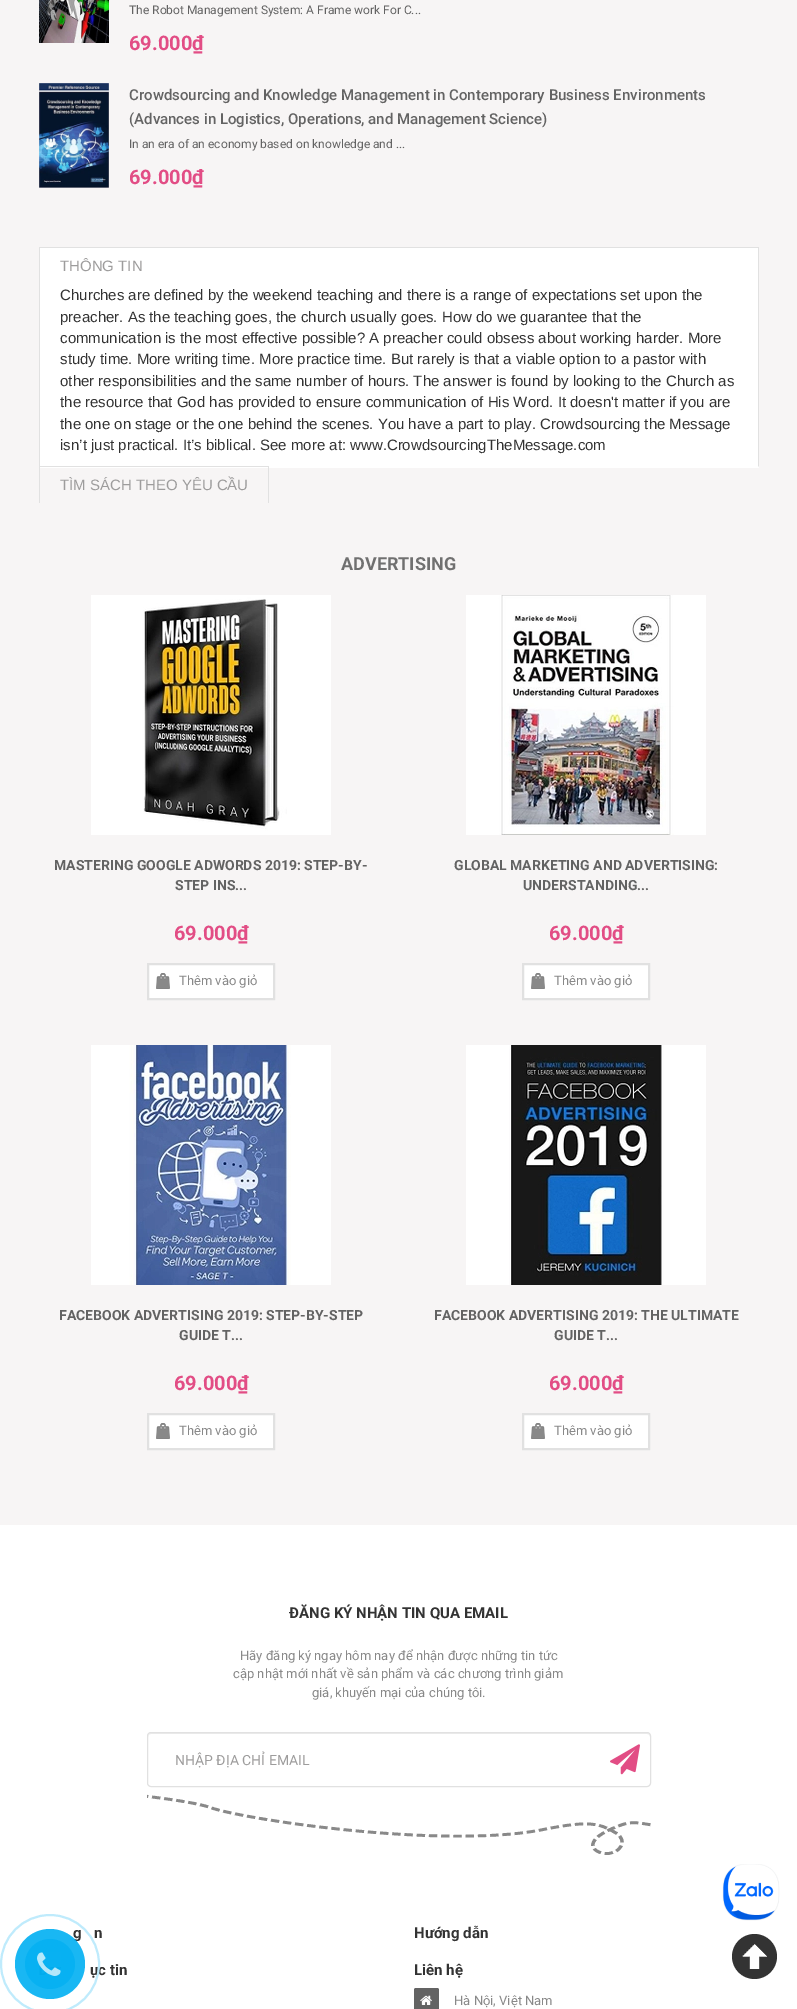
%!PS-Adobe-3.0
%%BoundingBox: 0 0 797 2009
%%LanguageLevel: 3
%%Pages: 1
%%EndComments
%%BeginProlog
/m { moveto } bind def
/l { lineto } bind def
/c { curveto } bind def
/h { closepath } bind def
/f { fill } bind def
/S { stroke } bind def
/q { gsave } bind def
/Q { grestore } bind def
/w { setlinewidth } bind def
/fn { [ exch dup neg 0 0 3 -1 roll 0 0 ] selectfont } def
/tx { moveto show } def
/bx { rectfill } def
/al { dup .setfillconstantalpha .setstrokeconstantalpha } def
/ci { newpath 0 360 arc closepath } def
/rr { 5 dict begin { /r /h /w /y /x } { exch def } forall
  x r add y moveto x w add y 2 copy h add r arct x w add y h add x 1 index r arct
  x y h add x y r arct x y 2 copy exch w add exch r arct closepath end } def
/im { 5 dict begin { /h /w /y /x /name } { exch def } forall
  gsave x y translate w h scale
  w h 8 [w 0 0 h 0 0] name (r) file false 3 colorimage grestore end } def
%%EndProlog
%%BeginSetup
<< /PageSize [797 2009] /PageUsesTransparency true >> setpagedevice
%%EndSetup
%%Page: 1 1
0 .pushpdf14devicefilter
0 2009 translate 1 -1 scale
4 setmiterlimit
0.969 0.961 0.961 setrgbcolor
0 0 797 2009 bx
1 setgray
0 1525 797 484 bx
/Roboto-Bold 15 fn
0.2 setgray
(g) 73 1938 tx
(n) 94 1938 tx
(ục tin) 90 1975 tx
0.749 0.922 0.988 setrgbcolor
2 w
50 1964 49 ci S
0.9 al
0 0.686 0.949 setrgbcolor
50 1964 35 ci f
0.7 al
50 1964 25 ci f
1 al
(image0.raw) 37 1952 24 24 im
(image1.raw) 39 0 70 43 im
/Roboto-Regular 12 fn
0.388 setgray
(The Robot Management System: A Frame work For C...) 129 14 tx
/Roboto-Bold 20 fn
0.886 0.302 0.522 setrgbcolor
(69.000₫) 129 50 tx
(image2.raw) 39 83 70 105 im
/Roboto-Medium 15 fn
0.388 setgray
(Crowdsourcing and Knowledge Management in Contemporary Business Environments) 129 100 tx
(\(Advances in Logistics, Operations, and Management Science\)) 129 124 tx
/Roboto-Regular 12 fn
(In an era of an economy based on knowledge and ...) 129 148 tx
/Roboto-Bold 20 fn
0.886 0.302 0.522 setrgbcolor
(69.000₫) 129 184 tx
1 setgray
40 248 718 218 bx
0.882 setgray
39 247 720 1 bx
759 247 m 759 468 l 758 466 l 758 248 l h f
1 setgray
759 468 m 39 468 l 40 466 l 758 466 l h f
0.882 setgray
39 468 m 39 247 l 40 248 l 40 466 l h f
/LiberationSans-Regular 15 fn
0.616 0.612 0.612 setrgbcolor
(THÔNG TIN) 60 271 tx
0.2 setgray
(Churches are defined by the weekend teaching and there is a range of expectations set upon the) 60 300 tx
(preacher. As the teaching goes, the church usually goes. How do we guarantee that the) 60 322 tx
(communication is the most effective possible? A preacher could obsess about working harder. More) 60 343 tx
(study time. More writing time. More practice time. But rarely is that a viable option to a pastor with) 60 364 tx
(other responsibilities and the same number of hours. The answer is found by looking to the Church as) 60 386 tx
(the resource that God has provided to ensure communication of His Word. It doesn't matter if you are) 60 407 tx
(the one on stage or the one behind the scenes. You have a part to play. Crowdsourcing the Message) 60 429 tx
(isn’t just practical. It’s biblical. See more at: www.CrowdsourcingTheMessage.com) 60 450 tx
0.882 setgray
39 466 230 1 bx
268 466 1 37 bx
39 466 1 37 bx
0.616 0.612 0.612 setrgbcolor
(TÌM SÁCH THEO YÊU CẦU) 60 490 tx
/Roboto-Bold 18 fn
0.439 setgray
(ADVERTISING) 341 570 tx
(image3.raw) 91 595 240 240 im
/Roboto-Bold 14 fn
0.388 setgray
(MASTERING GOOGLE ADWORDS 2019: STEP-BY-) 54 870 tx
(STEP INS...) 175 890 tx
/Roboto-Bold 20 fn
0.886 0.302 0.522 setrgbcolor
(69.000₫) 174 940 tx
1 setgray
148 964 m 274 964 l 274 999 l 148 999 l h q f Q
0.882 setgray
S
0.537 setgray
156 973 14 16 bx
(image4.raw) 156 973 14 16 im
/Roboto-Regular 13 fn
(Thêm vào giỏ) 179 985 tx
(image5.raw) 466 595 240 240 im
/Roboto-Bold 14 fn
0.388 setgray
(GLOBAL MARKETING AND ADVERTISING:) 454 870 tx
(UNDERSTANDING...) 523 890 tx
/Roboto-Bold 20 fn
0.886 0.302 0.522 setrgbcolor
(69.000₫) 549 940 tx
1 setgray
523 964 m 649 964 l 649 999 l 523 999 l h q f Q
0.882 setgray
S
0.537 setgray
531 973 14 16 bx
(image4.raw) 531 973 14 16 im
/Roboto-Regular 13 fn
(Thêm vào giỏ) 554 985 tx
(image6.raw) 91 1045 240 240 im
/Roboto-Bold 14 fn
0.388 setgray
(FACEBOOK ADVERTISING 2019: STEP-BY-STEP) 59 1320 tx
(GUIDE T...) 179 1340 tx
/Roboto-Bold 20 fn
0.886 0.302 0.522 setrgbcolor
(69.000₫) 174 1390 tx
1 setgray
148 1414 m 274 1414 l 274 1449 l 148 1449 l h q f Q
0.882 setgray
S
0.537 setgray
156 1423 14 16 bx
(image4.raw) 156 1423 14 16 im
/Roboto-Regular 13 fn
(Thêm vào giỏ) 179 1435 tx
(image7.raw) 466 1045 240 240 im
/Roboto-Bold 14 fn
0.388 setgray
(FACEBOOK ADVERTISING 2019: THE ULTIMATE) 434 1320 tx
(GUIDE T...) 554 1340 tx
/Roboto-Bold 20 fn
0.886 0.302 0.522 setrgbcolor
(69.000₫) 549 1390 tx
1 setgray
523 1414 m 649 1414 l 649 1449 l 523 1449 l h q f Q
0.882 setgray
S
0.537 setgray
531 1423 14 16 bx
(image4.raw) 531 1423 14 16 im
/Roboto-Regular 13 fn
(Thêm vào giỏ) 554 1435 tx
/Roboto-Bold 15 fn
0.2 setgray
(ĐĂNG KÝ NHẬN TIN QUA EMAIL) 289 1618 tx
/Roboto-Regular 13 fn
0.537 setgray
(Hãy đăng ký ngay hôm nay để nhận được những tin tức) 240 1660 tx
(cập nhật mới nhất về sản phẩm và các chương trình giảm) 233 1678 tx
(giá, khuyến mại của chúng tôi.) 312 1697 tx
(image8.raw) 147 1794 504 61 im
0.925 setgray
151 1734 m 647 1734 l 649 1734 650 1735 650 1737 c 650 1735 649 1733 647 1733 c 151 1733 l 149 1733 148 1735 148 1737 c 148 1735 149 1734 151 1734 c h f
0.882 setgray
1 w
147.5 1732.5 503 54 3.5 rr S
/Roboto-Regular 14 fn
0.616 0.612 0.612 setrgbcolor
(NHẬP ĐỊA CHỈ EMAIL) 175 1765 tx
(image9.raw) 610 1744 30 31 im
/Roboto-Bold 15 fn
0.2 setgray
(Hướng dẫn) 414 1938 tx
(Liên hệ) 414 1975 tx
0.388 setgray
414 1988 25 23 2 rr f
(image10.raw) 420 1995 12 10 im
/Roboto-Regular 13 fn
0.537 setgray
(Hà Nội, Việt Nam) 454 2005 tx
0.2 setgray
754.5 1956.5 22.5 ci f
(image11.raw) 742 1944 25 25 im
(image12.raw) 722 1864 58 57 im
.poppdf14devicefilter showpage
%%EOF
